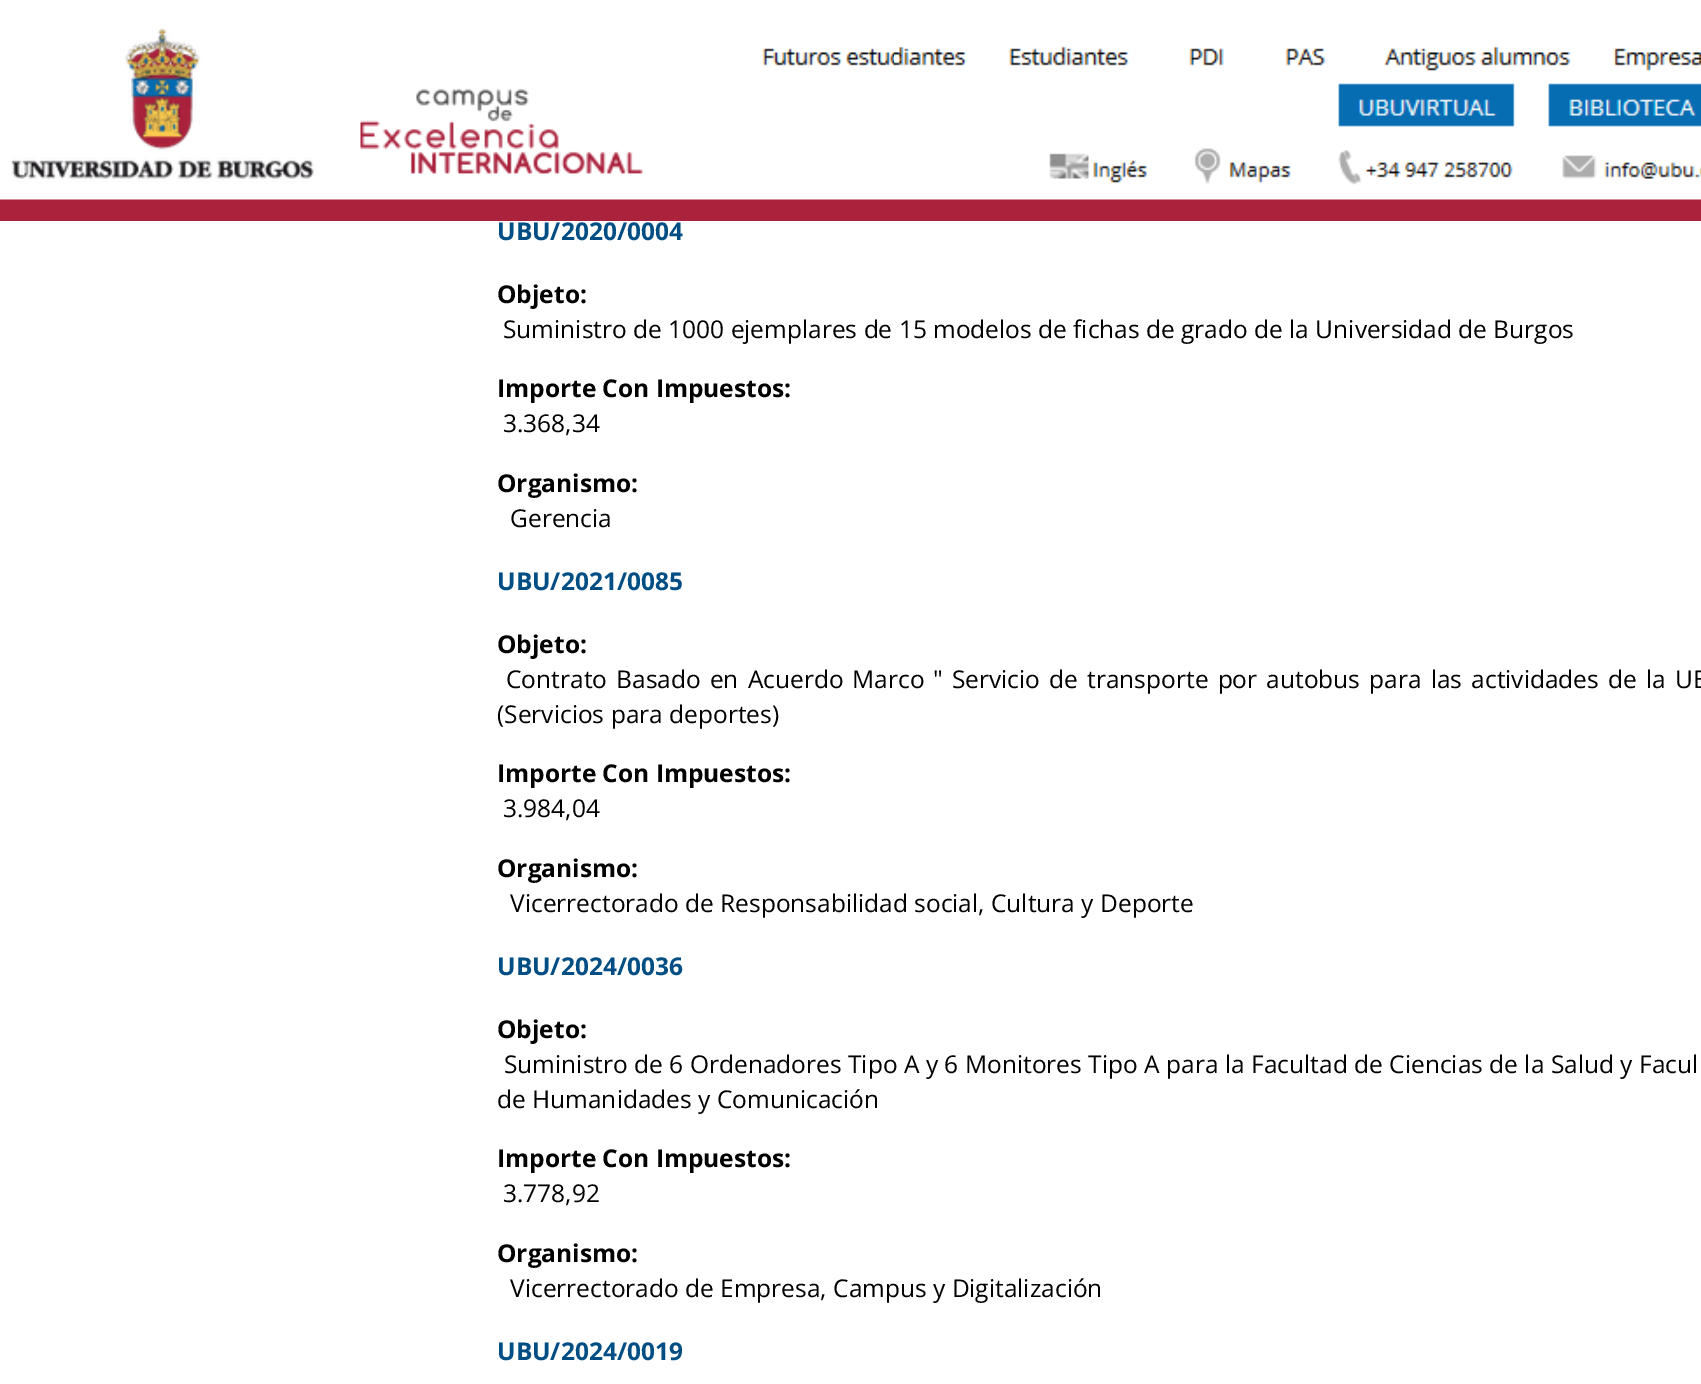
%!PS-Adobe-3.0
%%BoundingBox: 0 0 1701 1384
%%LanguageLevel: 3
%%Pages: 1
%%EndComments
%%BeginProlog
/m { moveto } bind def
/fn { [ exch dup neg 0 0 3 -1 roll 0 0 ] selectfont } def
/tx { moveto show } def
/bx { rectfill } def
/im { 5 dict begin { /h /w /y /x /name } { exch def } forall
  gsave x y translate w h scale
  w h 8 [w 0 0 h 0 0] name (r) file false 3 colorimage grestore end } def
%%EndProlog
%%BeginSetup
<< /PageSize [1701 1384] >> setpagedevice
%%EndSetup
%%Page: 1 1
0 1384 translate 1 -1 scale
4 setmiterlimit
1 setgray
0 0 1701 1384 bx
(image0.raw) 0 28 1701 193 im
/OpenSans-Bold 24.5 fn
0 0.306 0.514 setrgbcolor
(UBU/2020/0004) 497 240 tx
0 setgray
(Objeto:) 497 303 tx
/OpenSans-Regular 24.5 fn
(Suministro de 1000 ejemplares de 15 modelos de fichas de grado de la Universidad de Burgos) 503 338 tx
/OpenSans-Bold 24.5 fn
(Importe Con Impuestos:) 497 397 tx
/OpenSans-Regular 24.5 fn
(3.368,34) 503 432 tx
/OpenSans-Bold 24.5 fn
(Organismo:) 497 492 tx
/OpenSans-Regular 24.5 fn
(Gerencia) 510 527 tx
/OpenSans-Bold 24.5 fn
0 0.306 0.514 setrgbcolor
(UBU/2021/0085) 497 590 tx
0 setgray
(Objeto:) 497 653 tx
/OpenSans-Regular 24.5 fn
506 688 m 2.75 0 32 (Contrato Basado en Acuerdo Marco) widthshow
933 688 m 2.75 0 32 (" Servicio de transporte por autobus para las actividades de la UB) widthshow
(\(Servicios para deportes\)) 497 723 tx
/OpenSans-Bold 24.5 fn
(Importe Con Impuestos:) 497 782 tx
/OpenSans-Regular 24.5 fn
(3.984,04) 503 817 tx
/OpenSans-Bold 24.5 fn
(Organismo:) 497 877 tx
/OpenSans-Regular 24.5 fn
(Vicerrectorado de Responsabilidad social, Cultura y Deporte) 510 912 tx
/OpenSans-Bold 24.5 fn
0 0.306 0.514 setrgbcolor
(UBU/2024/0036) 497 975 tx
0 setgray
(Objeto:) 497 1038 tx
/OpenSans-Regular 24.5 fn
504 1073 m 0.1 0 32 (Suministro de 6 Ordenadores Tipo A y 6 Monitores Tipo A para la Facultad de Ciencias de la Salud y Facul) widthshow
(de Humanidades y Comunicación) 497 1108 tx
/OpenSans-Bold 24.5 fn
(Importe Con Impuestos:) 497 1167 tx
/OpenSans-Regular 24.5 fn
(3.778,92) 503 1202 tx
/OpenSans-Bold 24.5 fn
(Organismo:) 497 1262 tx
/OpenSans-Regular 24.5 fn
(Vicerrectorado de Empresa, Campus y Digitalización) 510 1297 tx
/OpenSans-Bold 24.5 fn
0 0.306 0.514 setrgbcolor
(UBU/2024/0019) 497 1360 tx
showpage
%%EOF
